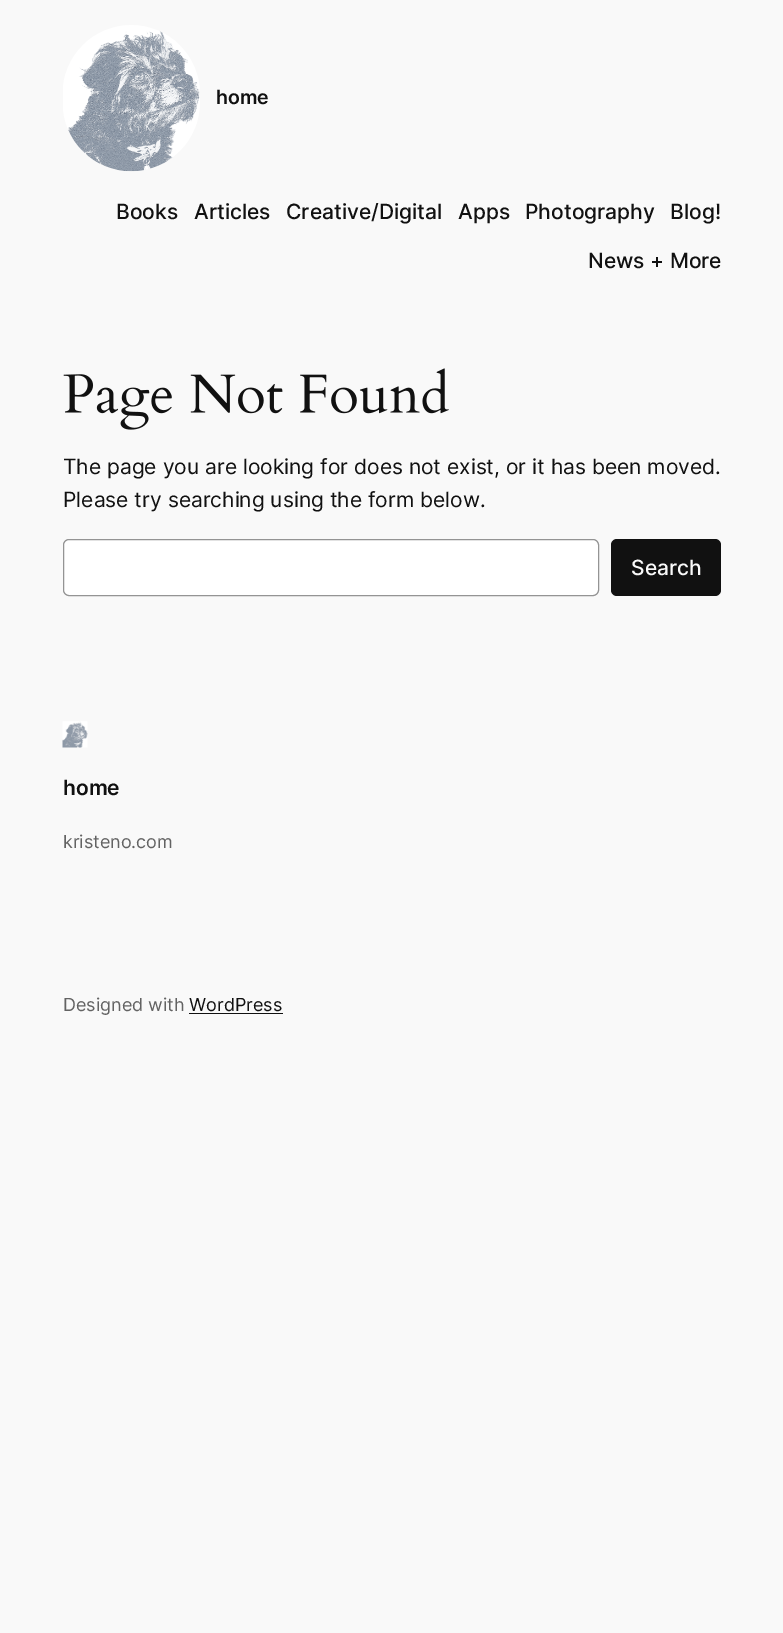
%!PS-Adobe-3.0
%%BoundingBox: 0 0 783 1633
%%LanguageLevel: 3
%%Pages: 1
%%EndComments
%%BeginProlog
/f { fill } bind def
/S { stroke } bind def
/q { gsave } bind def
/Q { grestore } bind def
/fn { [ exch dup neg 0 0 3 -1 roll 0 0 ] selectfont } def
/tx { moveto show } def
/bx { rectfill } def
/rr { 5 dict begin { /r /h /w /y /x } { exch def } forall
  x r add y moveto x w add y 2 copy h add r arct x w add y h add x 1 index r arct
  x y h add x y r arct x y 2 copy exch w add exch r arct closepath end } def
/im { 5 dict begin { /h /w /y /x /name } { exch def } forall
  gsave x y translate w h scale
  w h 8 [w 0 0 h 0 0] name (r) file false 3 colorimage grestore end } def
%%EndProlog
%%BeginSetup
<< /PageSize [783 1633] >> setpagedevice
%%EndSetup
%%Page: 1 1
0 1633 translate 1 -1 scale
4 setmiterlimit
0.976 setgray
0 0 783 1633 bx
(image0.raw) 63 25 137 147 im
/Inter-SemiBold 19.5 fn
0.067 setgray
(home) 216 104 tx
/Inter-Medium 21 fn
(Books) 116 219 tx
(Articles) 194 219 tx
(Creative/Digital) 286 219 tx
(Apps) 458 219 tx
(Photography) 525 219 tx
(Blog!) 670 219 tx
(News + More) 588 268 tx
(image1.raw) 63 368 386 62 im
/Inter-Regular 21 fn
(The page you are looking for does not exist, or it has been moved.) 63 474 tx
(Please try searching using the form below.) 63 507 tx
1 setgray
63.5 539.5 535 56 5.5 rr q f Q
0.58 setgray
S
0.067 setgray
611 539 110 57 6 rr f
/Inter-Medium 21 fn
0.976 setgray
(Search) 631 575 tx
(image2.raw) 62 721 26 27 im
/Inter-SemiBold 21 fn
0.067 setgray
(home) 63 795 tx
/Inter-Regular 18 fn
0.388 setgray
(kristeno.com) 63 848 tx
(Designed with) 63 1011 tx
0.067 setgray
(WordPress) 189 1011 tx
189 1013 94 1 bx
showpage
%%EOF
